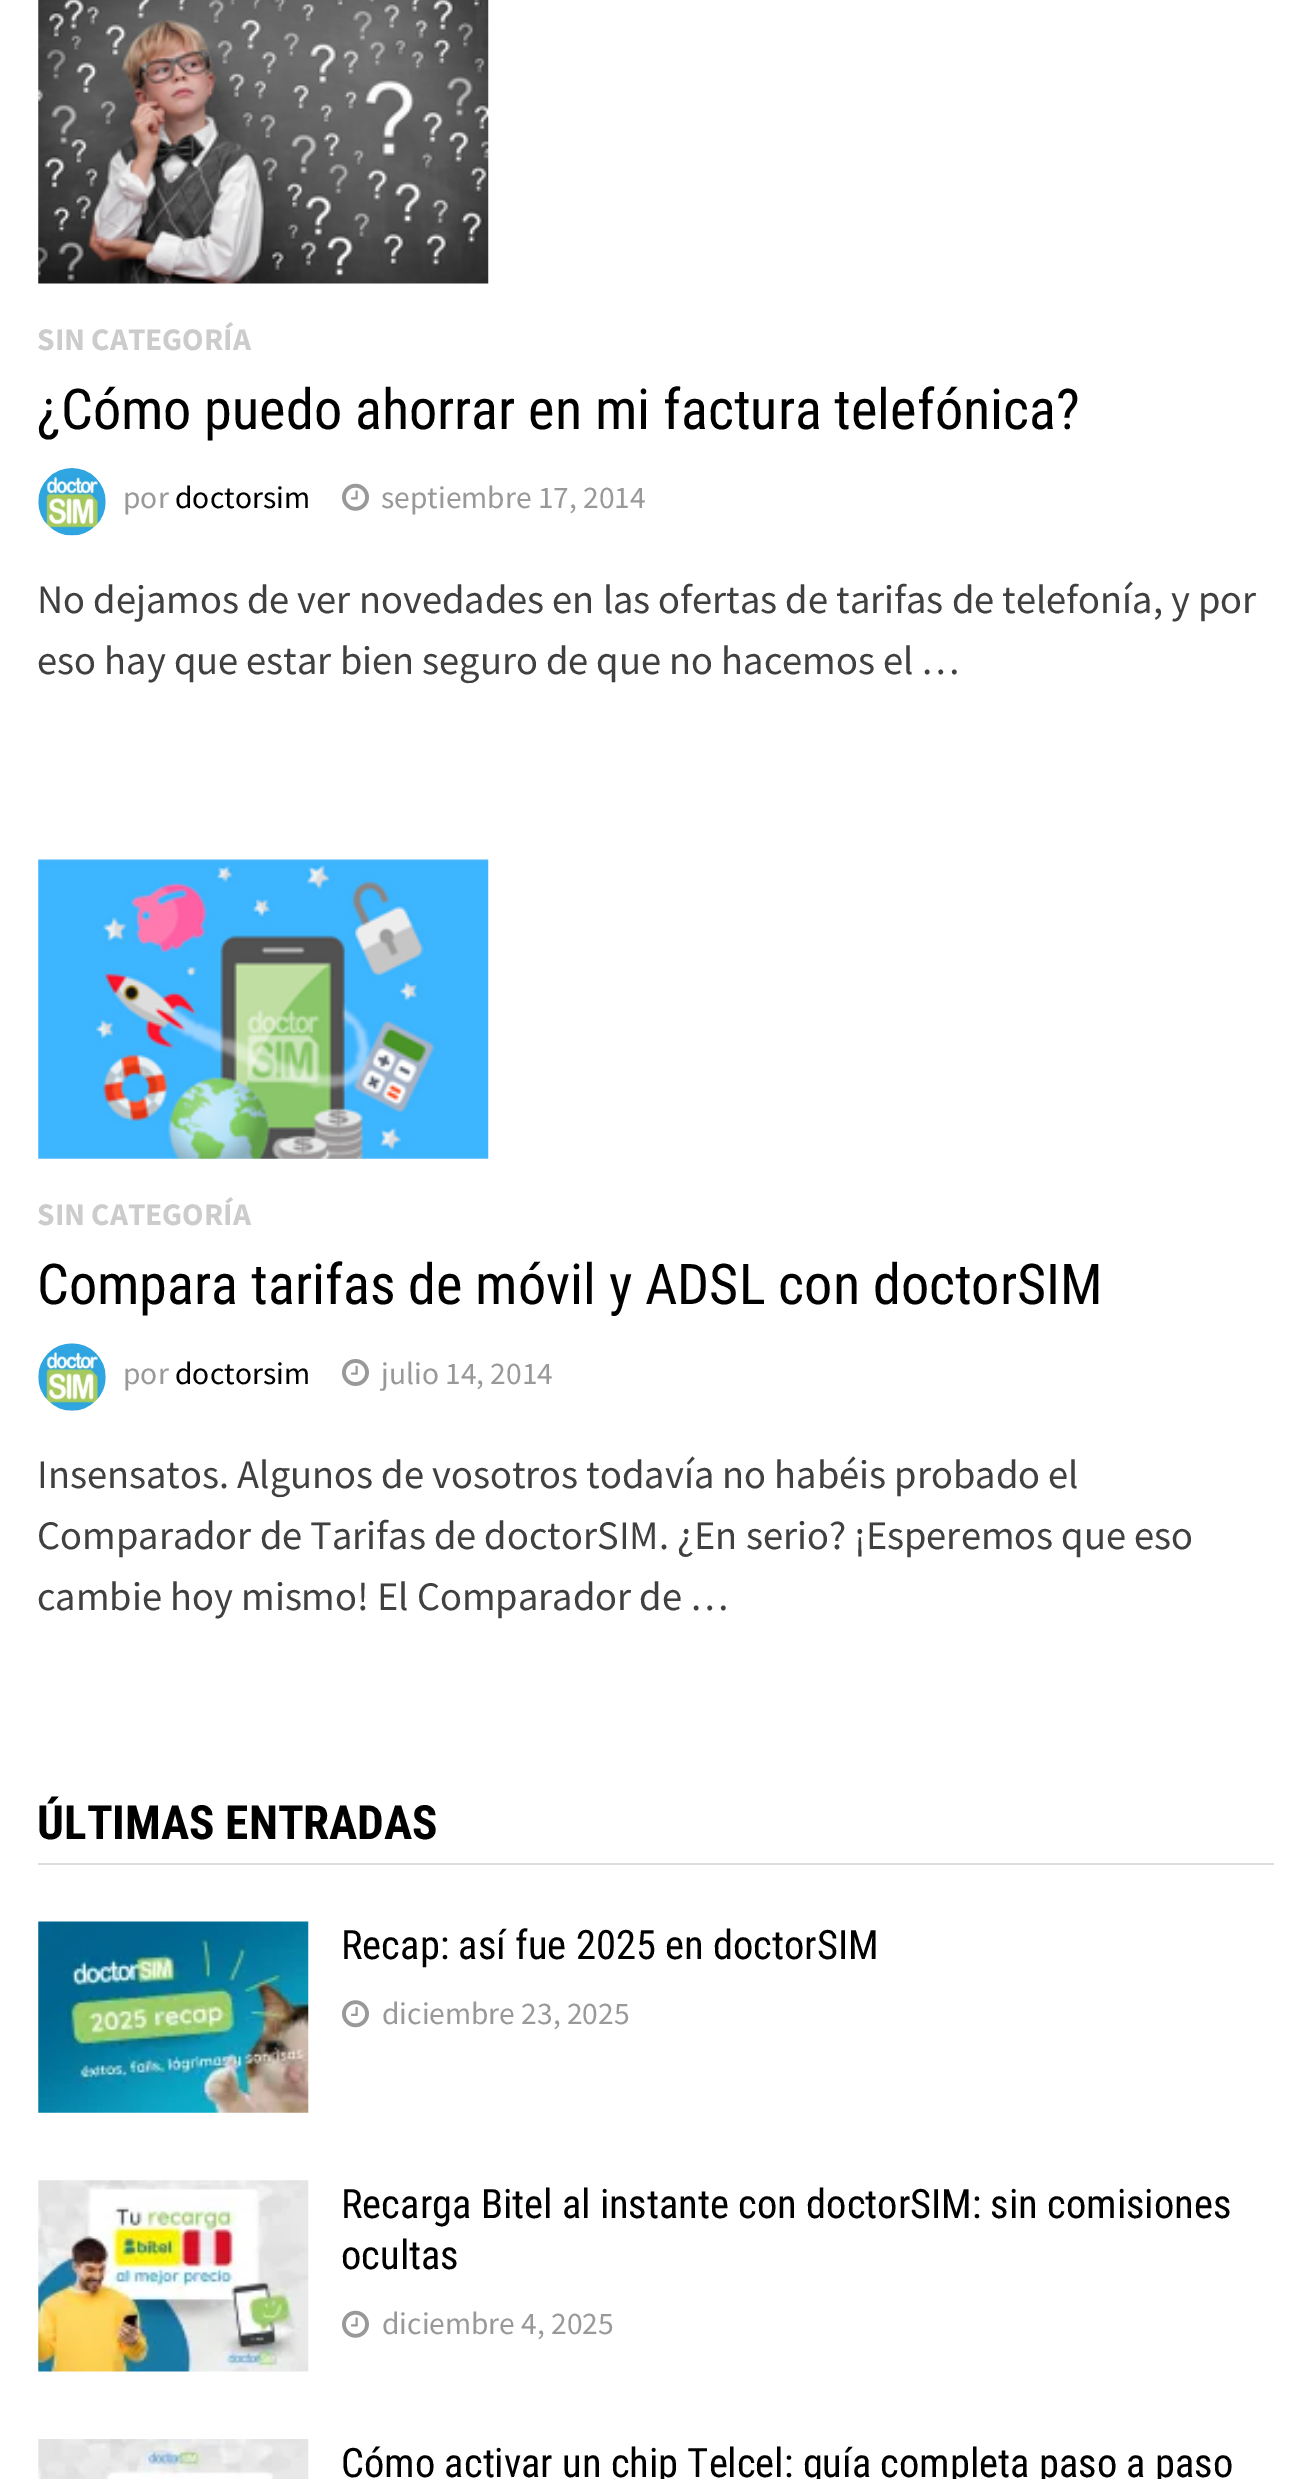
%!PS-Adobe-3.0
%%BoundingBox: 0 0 1311 2479
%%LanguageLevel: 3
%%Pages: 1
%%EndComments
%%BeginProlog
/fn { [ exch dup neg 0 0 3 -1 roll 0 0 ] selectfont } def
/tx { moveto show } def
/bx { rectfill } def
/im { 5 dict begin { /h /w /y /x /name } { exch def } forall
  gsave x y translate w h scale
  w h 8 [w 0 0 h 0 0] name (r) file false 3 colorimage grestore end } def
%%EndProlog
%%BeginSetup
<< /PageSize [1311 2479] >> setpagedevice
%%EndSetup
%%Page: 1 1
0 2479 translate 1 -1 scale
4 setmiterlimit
1 setgray
0 0 1311 2479 bx
(image0.raw) 38 0 451 284 im
/SourceSansPro-Bold 31.5 fn
0.8 setgray
(SIN CATEGORÍA) 37 350 tx
/RobotoCondensed-Regular 56.25 fn
0 setgray
(¿Cómo puedo ahorrar en mi factura telefónica?) 37 429 tx
(image1.raw) 38 468 68 68 im
/SourceSansPro-Regular 31.5 fn
0.6 setgray
(por) 123 508 tx
0 setgray
(doctorsim) 175 508 tx
(image2.raw) 342 483 27 28 im
0.6 setgray
(septiembre 17, 2014) 381 508 tx
/SourceSansPro-Regular 40.5 fn
0.251 setgray
(No dejamos de ver novedades en las ofertas de tarifas de telefonía, y por) 37 613 tx
(eso hay que estar bien seguro de que no hacemos el …) 37 674 tx
(image3.raw) 38 859 451 300 im
/SourceSansPro-Bold 31.5 fn
0.8 setgray
(SIN CATEGORÍA) 37 1225 tx
/RobotoCondensed-Regular 56.25 fn
0 setgray
(Compara tarifas de móvil y ADSL con doctorSIM) 37 1304 tx
(image4.raw) 38 1343 68 68 im
/SourceSansPro-Regular 31.5 fn
0.6 setgray
(por) 123 1384 tx
0 setgray
(doctorsim) 175 1384 tx
(image5.raw) 342 1359 27 27 im
0.6 setgray
(julio 14, 2014) 381 1384 tx
/SourceSansPro-Regular 40.5 fn
0.251 setgray
(Insensatos. Algunos de vosotros todavía no habéis probado el) 37 1488 tx
(Comparador de Tarifas de doctorSIM. ¿En serio? ¡Esperemos que eso) 37 1549 tx
(cambie hoy mismo! El Comparador de …) 37 1610 tx
0.867 setgray
38 1863 1236 2 bx
/RobotoCondensed-Bold 47.25 fn
0 setgray
(ÚLTIMAS ENTRADAS) 37 1839 tx
(image6.raw) 38 1921 271 192 im
/RobotoCondensed-Regular 40.5 fn
(Recap: así fue 2025 en doctorSIM) 341 1959 tx
(image7.raw) 342 2000 27 28 im
/SourceSansPro-Regular 31.5 fn
0.6 setgray
(diciembre 23, 2025) 382 2024 tx
(image8.raw) 38 2180 271 192 im
/RobotoCondensed-Regular 40.5 fn
0 setgray
(Recarga Bitel al instante con doctorSIM: sin comisiones) 341 2218 tx
(ocultas) 341 2269 tx
(image2.raw) 342 2310 27 28 im
/SourceSansPro-Regular 31.5 fn
0.6 setgray
(diciembre 4, 2025) 382 2334 tx
(image9.raw) 38 2439 271 40 im
/RobotoCondensed-Regular 40.5 fn
0 setgray
(Cómo activar un chip Telcel: guía completa paso a paso) 341 2477 tx
showpage
%%EOF
